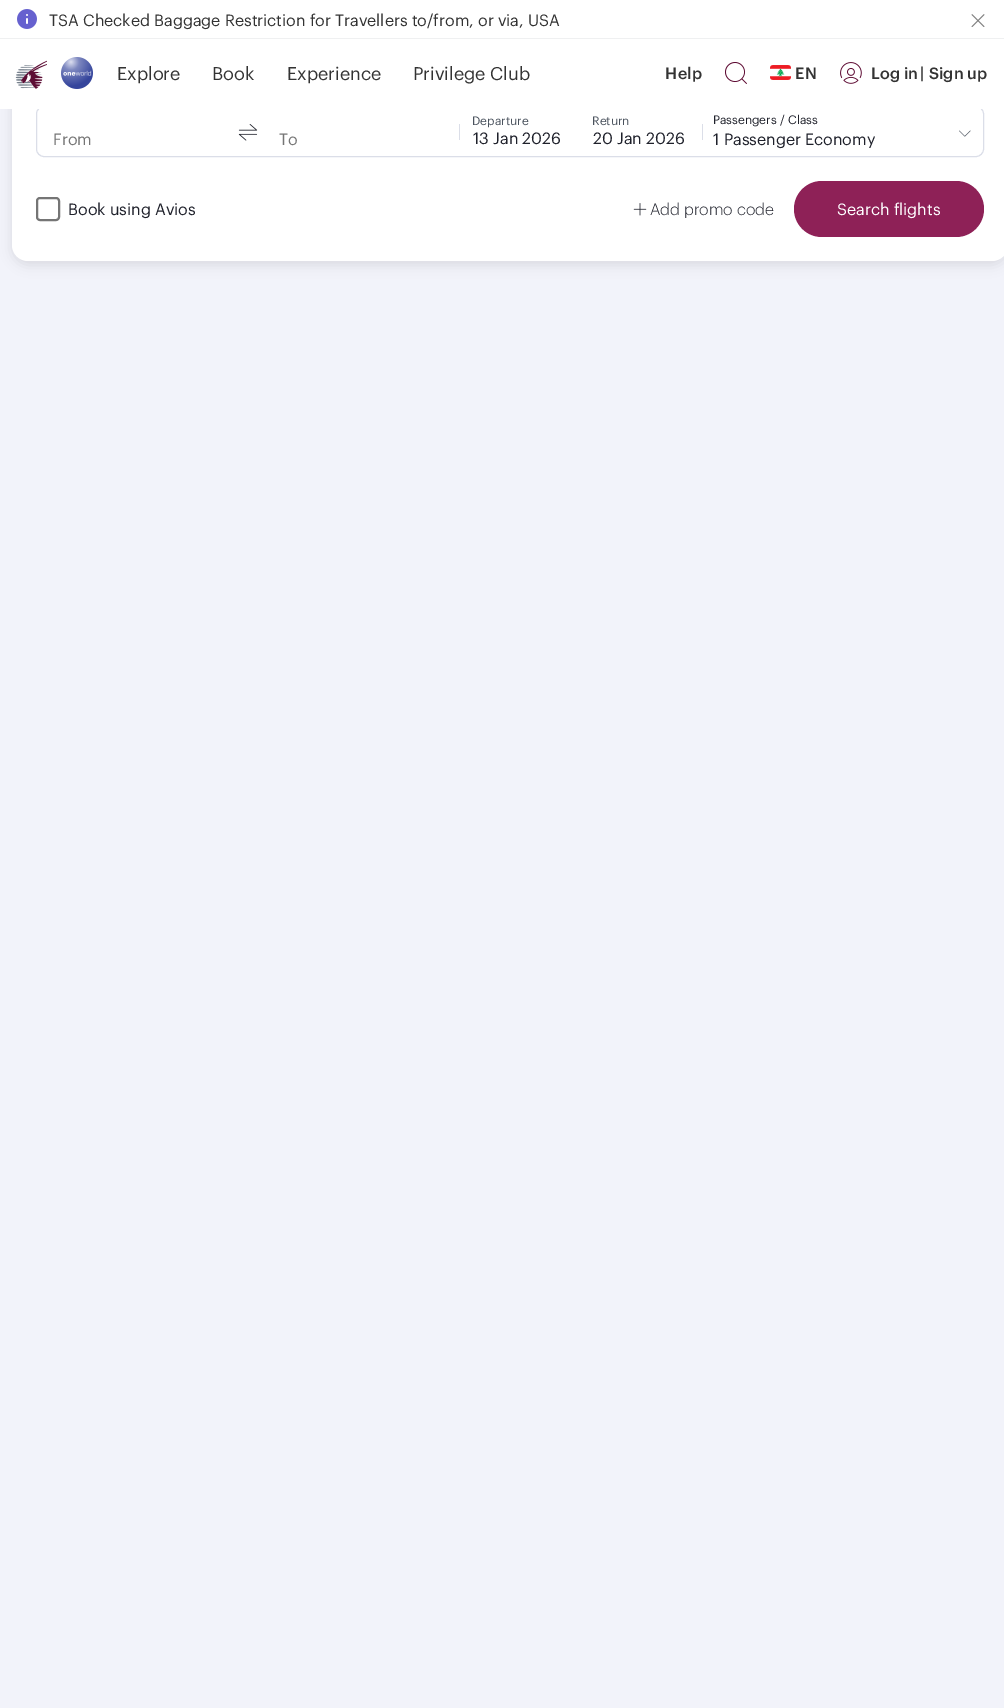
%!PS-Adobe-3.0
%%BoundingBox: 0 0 1004 1708
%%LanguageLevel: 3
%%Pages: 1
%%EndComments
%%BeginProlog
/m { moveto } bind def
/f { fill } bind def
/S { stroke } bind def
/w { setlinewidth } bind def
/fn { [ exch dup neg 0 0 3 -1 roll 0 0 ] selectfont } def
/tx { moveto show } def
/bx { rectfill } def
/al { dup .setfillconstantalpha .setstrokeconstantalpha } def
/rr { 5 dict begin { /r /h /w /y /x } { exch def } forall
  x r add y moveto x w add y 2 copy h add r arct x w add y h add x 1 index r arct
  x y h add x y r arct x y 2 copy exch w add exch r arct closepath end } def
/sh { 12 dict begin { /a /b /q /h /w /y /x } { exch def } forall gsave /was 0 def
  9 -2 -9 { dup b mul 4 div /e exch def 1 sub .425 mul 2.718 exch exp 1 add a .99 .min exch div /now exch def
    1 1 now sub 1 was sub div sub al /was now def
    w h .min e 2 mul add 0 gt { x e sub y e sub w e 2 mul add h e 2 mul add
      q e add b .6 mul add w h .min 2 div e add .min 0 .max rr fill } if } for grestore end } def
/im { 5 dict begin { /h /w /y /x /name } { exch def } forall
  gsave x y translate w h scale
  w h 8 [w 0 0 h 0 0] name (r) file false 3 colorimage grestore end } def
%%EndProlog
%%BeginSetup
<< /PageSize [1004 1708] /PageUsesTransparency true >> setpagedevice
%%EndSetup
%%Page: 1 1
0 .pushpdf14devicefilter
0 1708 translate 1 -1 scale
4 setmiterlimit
0.949 0.953 0.98 setrgbcolor
0 0 1004 1708 bx
0 setgray
12 38 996 227 16 6 0.1 sh
1 setgray
12 34 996 227 16 rr f
0.859 0.871 0.91 setrgbcolor
36.5 106.5 947 50 7.5 rr S
1 setgray
0 0 1004 109 bx
0.937 0.941 0.945 setrgbcolor
0 38 1004 1 bx
(image0.raw) 17 9 20 20 im
/Graphik-Regular 16 fn
0.2 setgray
(TSA Checked Baggage Restriction for Travellers to/from, or via, USA) 49 26 tx
(image1.raw) 971 14 14 13 im
(image2.raw) 15 60 32 29 im
(image3.raw) 61 57 32 32 im
/Graphik-Regular 18 fn
(Explore) 117 80 tx
(Book) 212 80 tx
(Experience) 287 80 tx
(Privilege Club) 413 80 tx
/Graphik-Medium 16 fn
665 79 m 0.5 0 (Help) ashow
(image4.raw) 725 62 22 22 im
(image5.raw) 770 65 21 15 im
795 79 m 0.5 0 (EN) ashow
(image6.raw) 840 62 22 22 im
(Log in) 871 79 tx
(|) 920 79 tx
(Sign up) 929 79 tx
/Graphik-Regular 16 fn
0.459 setgray
(From) 53 145 tx
(image7.raw) 238 124 20 17 im
(To) 279 145 tx
0.859 0.871 0.91 setrgbcolor
459 124 1 16 bx
/Graphik-Regular 12 fn
0.29 0.322 0.365 setrgbcolor
(Departure) 472 125 tx
/Graphik-Regular 16 fn
0.122 0.129 0.169 setrgbcolor
(13 Jan 2026) 473 144 tx
/Graphik-Regular 12 fn
0.29 0.322 0.365 setrgbcolor
(Return) 592 125 tx
/Graphik-Regular 16 fn
0.122 0.129 0.169 setrgbcolor
(20 Jan 2026) 593 144 tx
0.859 0.871 0.91 setrgbcolor
702 124 1 16 bx
/Graphik-Regular 12 fn
0.122 0.129 0.169 setrgbcolor
(Passengers / Class) 713 124 tx
/Graphik-Regular 16 fn
(1 Passenger Economy) 713 145 tx
(image8.raw) 959 130 12 7 im
0.459 setgray
2 w
37 198 22 22 3 rr S
0.122 0.129 0.169 setrgbcolor
(Book using Avios) 68 215 tx
(image9.raw) 633 203 14 13 im
/Graphik-Light 16 fn
(Add promo code) 650 215 tx
0.557 0.129 0.341 setrgbcolor
794 181 190 56 28 rr f
/Graphik-Regular 16 fn
1 setgray
(Search flights) 837 215 tx
.poppdf14devicefilter showpage
%%EOF
